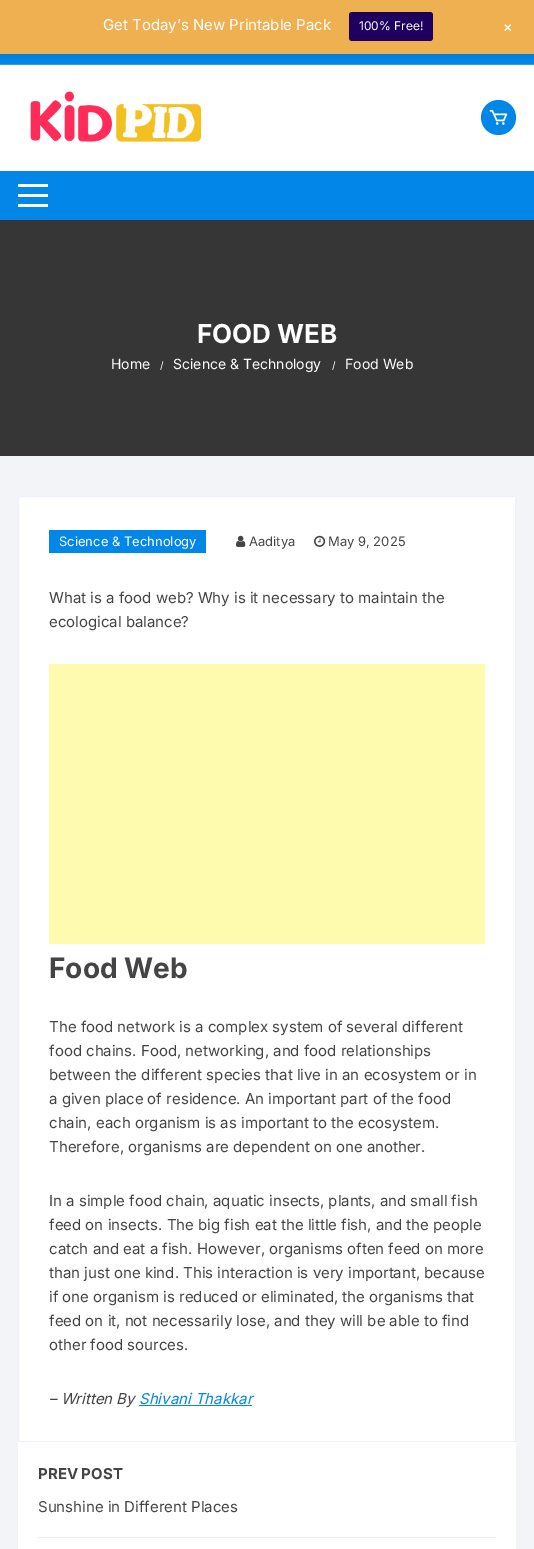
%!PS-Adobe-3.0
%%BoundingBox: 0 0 534 1549
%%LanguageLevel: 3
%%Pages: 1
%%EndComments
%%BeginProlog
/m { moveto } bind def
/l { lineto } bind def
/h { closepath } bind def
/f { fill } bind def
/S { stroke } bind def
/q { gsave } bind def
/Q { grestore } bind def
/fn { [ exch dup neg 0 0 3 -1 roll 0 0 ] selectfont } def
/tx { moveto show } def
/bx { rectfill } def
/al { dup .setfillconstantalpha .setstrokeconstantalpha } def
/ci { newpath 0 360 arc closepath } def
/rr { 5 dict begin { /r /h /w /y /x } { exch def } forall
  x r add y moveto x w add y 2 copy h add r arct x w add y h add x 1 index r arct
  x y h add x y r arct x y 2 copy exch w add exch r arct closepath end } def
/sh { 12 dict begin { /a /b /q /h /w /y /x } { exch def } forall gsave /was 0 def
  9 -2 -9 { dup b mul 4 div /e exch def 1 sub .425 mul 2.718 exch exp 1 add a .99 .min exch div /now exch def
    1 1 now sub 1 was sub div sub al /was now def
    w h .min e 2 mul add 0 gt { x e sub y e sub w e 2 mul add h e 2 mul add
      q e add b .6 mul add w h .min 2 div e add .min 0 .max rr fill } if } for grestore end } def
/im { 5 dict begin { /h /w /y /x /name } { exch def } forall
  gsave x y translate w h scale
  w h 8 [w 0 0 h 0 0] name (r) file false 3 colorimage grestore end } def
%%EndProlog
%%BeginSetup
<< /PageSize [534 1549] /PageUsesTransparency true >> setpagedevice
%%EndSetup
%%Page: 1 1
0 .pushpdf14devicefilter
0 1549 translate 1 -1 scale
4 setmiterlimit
0.953 0.957 0.973 setrgbcolor
0 0 534 1549 bx
0.008 0.525 0.906 setrgbcolor
0 54 534 10 bx
0 setgray
0 3 534 54 0 2 0.05 sh
0.937 0.69 0.318 setrgbcolor
0 0 534 54 bx
/Inter-Regular 15 fn
1 setgray
(Get Today’s New Printable Pack) 103 30 tx
0.122 0 0.369 setrgbcolor
349 12 84 29 3 rr f
/Inter-Regular 12 fn
1 setgray
(100% Free!) 359 30 tx
/Inter-Regular 18 fn
q 500 27 translate 45 rotate 0 0 m (+) show Q
0 65 534 106 bx
0.208 0.62 0.925 setrgbcolor
0 64 534 1 bx
(image0.raw) 30 91 171 51 im
0.008 0.525 0.906 setrgbcolor
498.5 117.5 17.5 ci f
(image1.raw) 489 109 19 16 im
0 171 534 49 bx
1 setgray
18 184 30 3 bx
18 194 30 3 bx
18 204 30 3 bx
0.212 setgray
0 220 534 236 bx
/Inter-Bold 26 fn
1 setgray
(FOOD WEB) 197 343 tx
/Inter-Regular 14 fn
(Home) 111 369 tx
/Inter-Regular 10 fn
(/) 160 369 tx
/Inter-Regular 14 fn
(Science & Technology) 173 369 tx
/Inter-Regular 10 fn
(/) 332 369 tx
/Inter-Regular 14 fn
(Food Web) 345 369 tx
18.5 496.5 m 515.5 496.5 l 515.5 1441.5 l 18.5 1441.5 l h q f Q
0.933 0.945 0.992 setrgbcolor
S
0.008 0.525 0.906 setrgbcolor
49 530 157 23 bx
/Inter-Regular 13 fn
1 setgray
(Science & Technology) 59 546 tx
(image2.raw) 236 535 10 12 im
0.267 setgray
(Aaditya) 249 546 tx
(image3.raw) 314 535 12 12 im
(May 9, 2025) 328 546 tx
/Inter-Regular 15 fn
(What is a food web? Why is it necessary to maintain the) 49 603 tx
(ecological balance?) 49 627 tx
1 0.984 0.682 setrgbcolor
49 664 436 280 bx
/Inter-Bold 28 fn
0.267 setgray
(Food Web) 49 978 tx
/Inter-Regular 15 fn
(The food network is a complex system of several different) 49 1032 tx
(food chains. Food, networking, and food relationships) 49 1056 tx
(between the different species that live in an ecosystem or in) 49 1080 tx
(a given place of residence. An important part of the food) 49 1104 tx
(chain, each organism is as important to the ecosystem.) 49 1128 tx
(Therefore, organisms are dependent on one another.) 49 1152 tx
(In a simple food chain, aquatic insects, plants, and small fish) 49 1206 tx
(feed on insects. The big fish eat the little fish, and the people) 49 1230 tx
(catch and eat a fish. However, organisms often feed on more) 49 1254 tx
(than just one kind. This interaction is very important, because) 49 1278 tx
(if one organism is reduced or eliminated, the organisms that) 49 1302 tx
(feed on it, not necessarily lose, and they will be able to find) 49 1326 tx
(other food sources.) 49 1350 tx
/Inter-Italic 15 fn
(– Written By) 49 1404 tx
0.008 0.525 0.906 setrgbcolor
139 1405 113 1 bx
(Shivani Thakkar) 139 1404 tx
1 setgray
18 1442 498 107 bx
0.925 setgray
38 1537 458 1 bx
/Inter-Bold 15 fn
0.267 setgray
(PREV POST) 38 1479 tx
/Inter-Regular 15 fn
(Sunshine in Different Places) 38 1512 tx
.poppdf14devicefilter showpage
%%EOF
